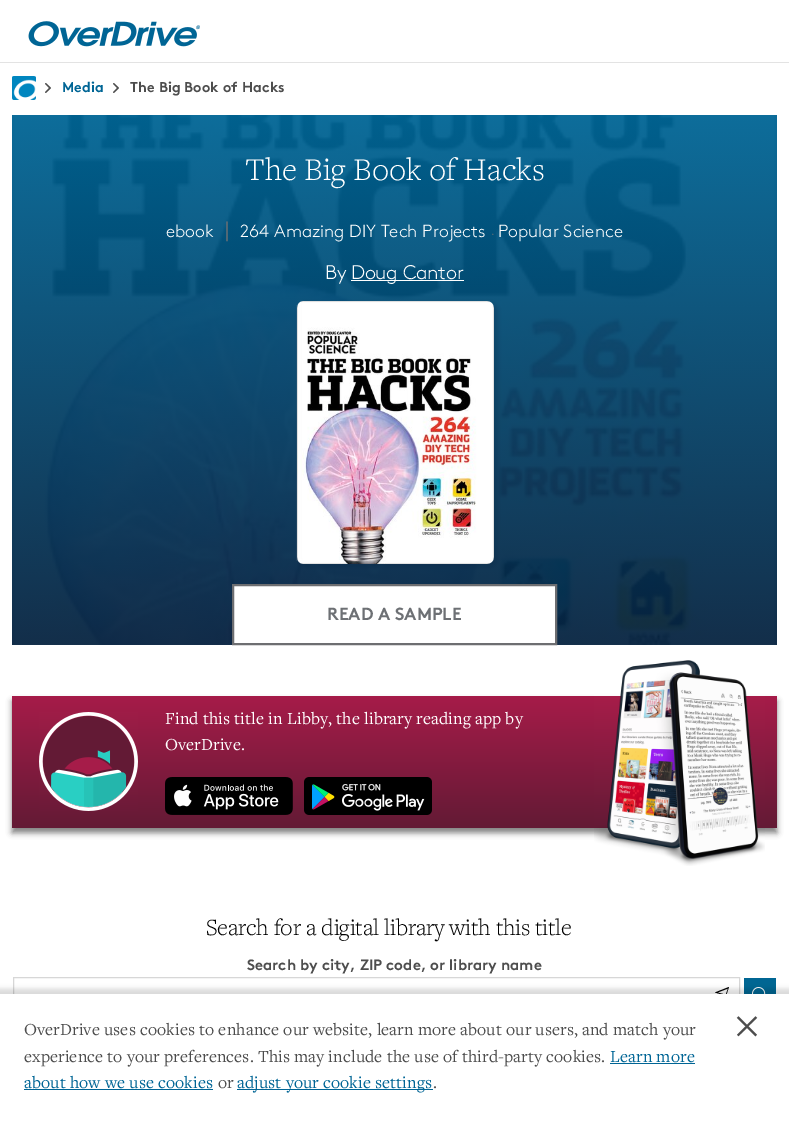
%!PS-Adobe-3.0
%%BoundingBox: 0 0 789 1139
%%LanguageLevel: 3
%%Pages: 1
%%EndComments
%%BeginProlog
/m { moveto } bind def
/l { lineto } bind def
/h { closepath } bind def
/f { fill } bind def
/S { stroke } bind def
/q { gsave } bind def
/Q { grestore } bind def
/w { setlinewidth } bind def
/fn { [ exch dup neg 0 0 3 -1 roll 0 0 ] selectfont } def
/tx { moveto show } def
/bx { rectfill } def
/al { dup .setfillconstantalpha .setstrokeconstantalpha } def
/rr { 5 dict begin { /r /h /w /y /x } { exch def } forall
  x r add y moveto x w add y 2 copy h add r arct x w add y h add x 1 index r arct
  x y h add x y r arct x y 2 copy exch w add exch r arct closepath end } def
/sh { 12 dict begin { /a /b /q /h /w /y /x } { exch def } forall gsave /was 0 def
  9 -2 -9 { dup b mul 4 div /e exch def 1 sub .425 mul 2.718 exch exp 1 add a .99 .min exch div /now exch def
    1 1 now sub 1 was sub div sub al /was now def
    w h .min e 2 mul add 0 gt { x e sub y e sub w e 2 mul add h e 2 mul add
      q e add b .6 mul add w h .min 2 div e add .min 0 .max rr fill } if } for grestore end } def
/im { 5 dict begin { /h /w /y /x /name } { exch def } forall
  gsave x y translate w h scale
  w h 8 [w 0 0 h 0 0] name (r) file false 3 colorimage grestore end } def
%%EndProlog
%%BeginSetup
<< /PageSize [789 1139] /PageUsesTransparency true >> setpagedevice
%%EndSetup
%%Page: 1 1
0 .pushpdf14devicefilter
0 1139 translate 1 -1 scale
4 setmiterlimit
1 setgray
0 0 789 1139 bx
0.89 setgray
0 62 789 1 bx
(image0.raw) 28 21 172 26 im
(image1.raw) 12 76 24 24 im
(image2.raw) 45 83 6 10 im
/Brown-Bold 14.25 fn
0 0.396 0.584 setrgbcolor
62 92 m 0.1 0 (Media) ashow
(image2.raw) 113 83 6 10 im
0.302 setgray
130 92 m 0.1 0 (The Big Book of Hacks) ashow
(image3.raw) 12 115 765 530 im
/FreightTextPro-Light 33 fn
1 setgray
(The Big Book of Hacks) 245 180 tx
/Brown-Light 17.6 fn
(ebook) 166 237 tx
/DejaVuSans-Regular 20 fn
0.427 0.439 0.455 setrgbcolor
(∣) 222 237 tx
/Brown-Light 17.6 fn
1 setgray
(264 Amazing DIY Tech Projects) 240 237 tx
/Brown-Light 12 fn
0.427 0.439 0.455 setrgbcolor
(·) 491 237 tx
/Brown-Light 17.6 fn
1 setgray
(Popular Science) 498 237 tx
/Brown-Light 19.75 fn
325 279 m -0.25 0 (By) ashow
351 280 113 1 bx
351 279 m -0.25 0 (Doug Cantor) ashow
0.024 0.137 0.251 setrgbcolor
298 303 200 265 8 2.5 0.25 sh
0.1 al
0.655 0.663 0.675 setrgbcolor
296 305 1 256 bx
1 al
(image4.raw) 297 301 197 263 im
1 setgray
233 585 m 556 585 l 556 644 l 233 644 l h q f Q
0.427 0.431 0.443 setrgbcolor
2 w
S
/Brown-Bold 17.6 fn
0.427 0.439 0.455 setrgbcolor
(READ A SAMPLE) 327 620 tx
0.502 setgray
12 701 765 132 0 3 1 sh
q 12 696 m 777 696 l 777 828 l 12 828 l h clip newpath
<< /ShadingType 2 /ColorSpace /DeviceRGB /Coords [395 696 395 828] /Extend [true true] /Function << /FunctionType 2 /Domain [0 1] /C0 [0.651 0.11 0.286] /C1 [0.388 0.102 0.208] /N 1 >> >> shfill Q
(image5.raw) 39 712 99 99 im
/FreightTextPro-Regular 17.6 fn
1 setgray
165 724 m 0.1 0 (Find this title in Libby, the library reading app by) ashow
165 750 m 0.1 0 (OverDrive.) ashow
(image6.raw) 165 777 128 38 im
(image7.raw) 304 777 128 38 im
(image8.raw) 594 660 171 206 im
/FreightTextPro-Light 24 fn
0 setgray
206 935 m -0.25 0 (Search for a digital library with this title) ashow
/Brown-Bold 15 fn
0.302 setgray
(Search by city, ZIP code, or library name) 247 970 tx
0.843 setgray
1 w
13.5 977.5 726 33 rectstroke
0 0.4 0.576 setrgbcolor
744 978 32 16 bx
(image9.raw) 752 987 14 7 im
0 setgray
728 988.5 m 724 999.5 l 723 994 l 717.5 992.5 l 728 988.5 l 729 987 m 715 992.5 l 722 994.5 l 724 1002 l h f
-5 989 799 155 0 2.5 0.15 sh
1 setgray
0 994 789 145 bx
/FreightTextPro-Regular 17.6 fn
0.302 setgray
24 1035 m 0.1 0 (OverDrive uses cookies to enhance our website, learn more about our users, and match your) ashow
24 1062 m 0.1 0 (experience to your preferences. This may include the use of third-party cookies.) ashow
0 0.396 0.584 setrgbcolor
610 1062 m 0.1 0 (Learn more) ashow
610 1063 85 1 bx
24 1088 m 0.1 0 (about how we use cookies) ashow
24 1089 189 1 bx
0.302 setgray
218 1088 m 0.1 0 (or) ashow
0 0.396 0.584 setrgbcolor
237 1089 196 1 bx
237 1088 m 0.1 0 (adjust your cookie settings) ashow
0.302 setgray
433 1088 m 0.1 0 (.) ashow
/FreightTextPro-Regular 50 fn
(×) 735 1038 tx
.poppdf14devicefilter showpage
%%EOF
